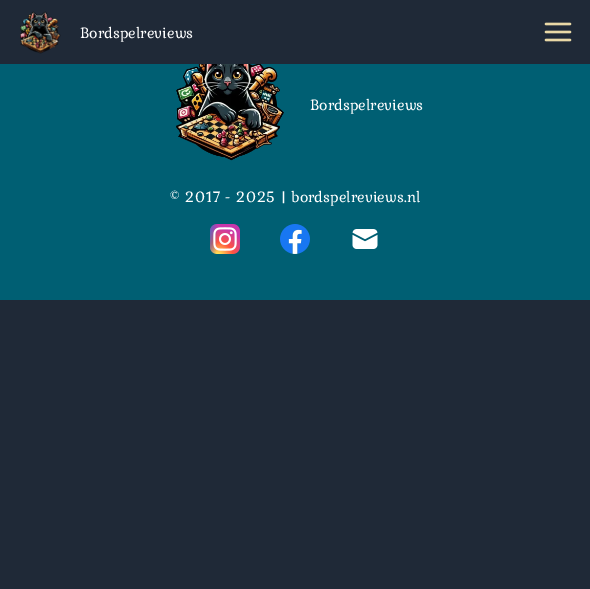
%!PS-Adobe-3.0
%%BoundingBox: 0 0 590 589
%%LanguageLevel: 3
%%Pages: 1
%%EndComments
%%BeginProlog
/fn { [ exch dup neg 0 0 3 -1 roll 0 0 ] selectfont } def
/tx { moveto show } def
/bx { rectfill } def
/im { 5 dict begin { /h /w /y /x /name } { exch def } forall
  gsave x y translate w h scale
  w h 8 [w 0 0 h 0 0] name (r) file false 3 colorimage grestore end } def
%%EndProlog
%%BeginSetup
<< /PageSize [590 589] >> setpagedevice
%%EndSetup
%%Page: 1 1
0 589 translate 1 -1 scale
4 setmiterlimit
0.122 0.161 0.216 setrgbcolor
0 0 590 589 bx
(image0.raw) 20 11 41 43 im
/Kurale-Regular 16 fn
1 setgray
(Bordspelreviews) 80 38 tx
(image1.raw) 544 22 28 20 im
0 0.373 0.451 setrgbcolor
0 64 590 236 bx
(image2.raw) 176 64 108 97 im
1 setgray
(Bordspelreviews) 310 110 tx
(© 2017 - 2025 | bordspelreviews.nl) 169 202 tx
(image3.raw) 210 224 30 30 im
(image4.raw) 280 224 30 30 im
(image5.raw) 352 229 26 20 im
showpage
%%EOF
